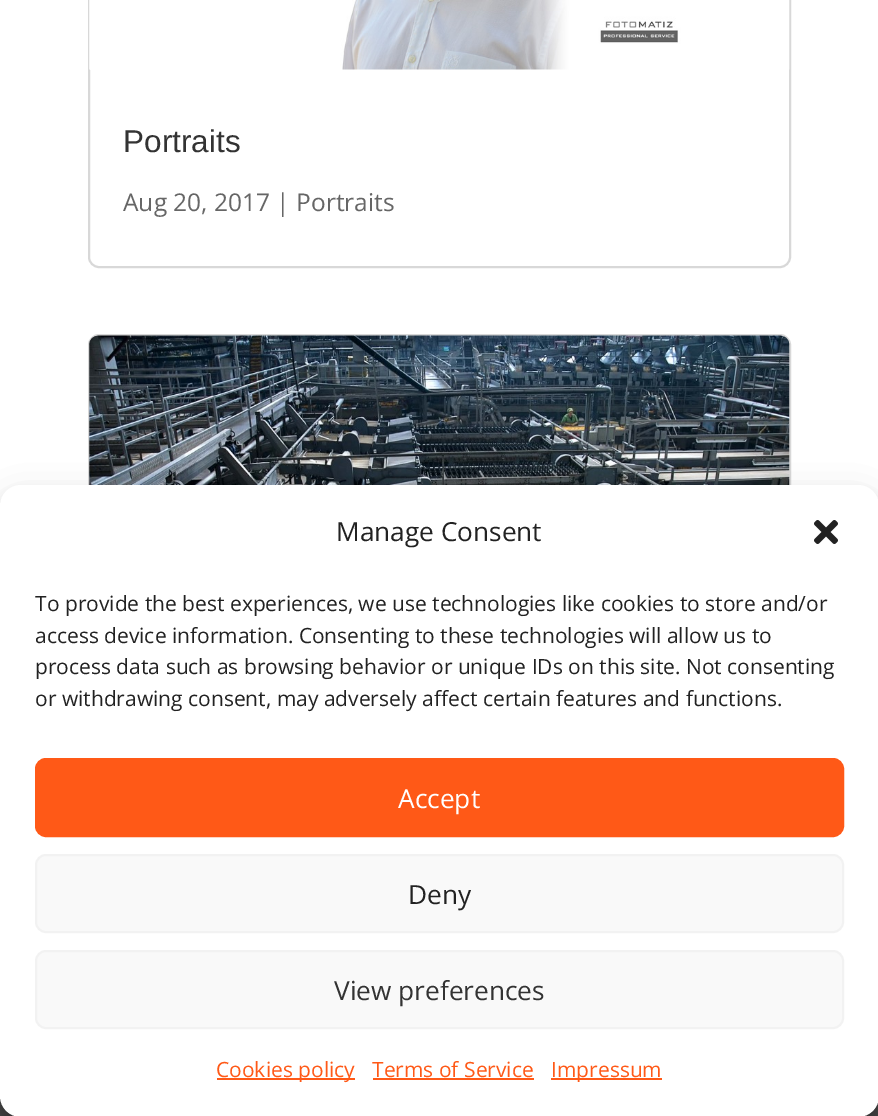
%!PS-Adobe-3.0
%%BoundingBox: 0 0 878 1116
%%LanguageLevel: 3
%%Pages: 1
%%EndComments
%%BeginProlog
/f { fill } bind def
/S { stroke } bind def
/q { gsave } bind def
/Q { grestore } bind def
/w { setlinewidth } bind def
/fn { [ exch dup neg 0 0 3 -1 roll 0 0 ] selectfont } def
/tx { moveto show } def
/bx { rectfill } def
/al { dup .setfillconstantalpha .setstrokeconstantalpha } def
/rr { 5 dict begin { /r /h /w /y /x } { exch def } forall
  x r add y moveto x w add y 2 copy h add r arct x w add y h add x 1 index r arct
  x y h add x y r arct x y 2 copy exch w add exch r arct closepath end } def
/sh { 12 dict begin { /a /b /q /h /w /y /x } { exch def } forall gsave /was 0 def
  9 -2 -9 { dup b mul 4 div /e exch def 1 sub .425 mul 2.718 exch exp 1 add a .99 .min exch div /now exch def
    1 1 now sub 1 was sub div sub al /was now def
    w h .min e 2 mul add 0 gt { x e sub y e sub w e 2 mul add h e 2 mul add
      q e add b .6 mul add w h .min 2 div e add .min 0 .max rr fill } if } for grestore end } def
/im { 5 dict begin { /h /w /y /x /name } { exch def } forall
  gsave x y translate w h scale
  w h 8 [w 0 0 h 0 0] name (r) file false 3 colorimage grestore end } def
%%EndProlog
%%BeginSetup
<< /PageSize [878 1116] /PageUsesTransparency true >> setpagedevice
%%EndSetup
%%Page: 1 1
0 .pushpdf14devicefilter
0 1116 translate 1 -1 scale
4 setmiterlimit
1 setgray
0 0 878 1116 bx
0.847 setgray
2 w
89 -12 701 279 10 rr S
(image0.raw) 89 0 701 70 im
/LiberationSans-Regular 31.5 fn
0.2 setgray
(Portraits) 123 152 tx
/OpenSans-Regular 24.5 fn
0.4 setgray
(Aug 20, 2017 | Portraits) 123 211 tx
0.847 setgray
89 335 701 518 10 rr S
(image1.raw) 89 335 701 150 im
0.302 setgray
0 1096 878 20 bx
0 setgray
0 495 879 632 21 5 0.23 sh
0 502 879 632 21 17.5 0.19 sh
1 setgray
0 485 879 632 21 rr f
/OpenSans-Regular 26.25 fn
0.133 setgray
(Manage Consent) 336 541 tx
(image2.raw) 814 520 24 24 im
/OpenSans-Regular 21 fn
(To provide the best experiences, we use technologies like cookies to store and/or) 35 611 tx
(access device information. Consenting to these technologies will allow us to) 35 643 tx
(process data such as browsing behavior or unique IDs on this site. Not consenting) 35 674 tx
(or withdrawing consent, may adversely affect certain features and functions.) 35 706 tx
1 0.349 0.09 setrgbcolor
36 759 807 77 10 rr q f Q
S
/OpenSans-Regular 26.25 fn
1 setgray
(Accept) 398 808 tx
0.976 setgray
36 855 807 77 10 rr q f Q
0.949 setgray
S
0.133 setgray
(Deny) 408 904 tx
0.976 setgray
36 951 807 77 10 rr q f Q
0.949 setgray
S
0.2 setgray
(View preferences) 334 1000 tx
1 0.349 0.09 setrgbcolor
217 1078 138 2 bx
/OpenSans-Regular 21 fn
(Cookies policy) 216 1077 tx
(Terms of Service) 372 1077 tx
373 1078 161 2 bx
551 1078 111 2 bx
(Impressum) 551 1077 tx
.poppdf14devicefilter showpage
%%EOF
